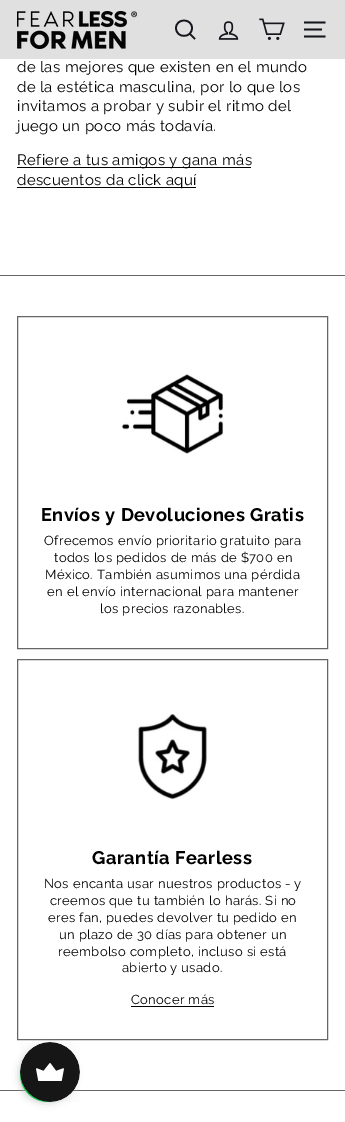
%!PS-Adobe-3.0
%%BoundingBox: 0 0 345 1122
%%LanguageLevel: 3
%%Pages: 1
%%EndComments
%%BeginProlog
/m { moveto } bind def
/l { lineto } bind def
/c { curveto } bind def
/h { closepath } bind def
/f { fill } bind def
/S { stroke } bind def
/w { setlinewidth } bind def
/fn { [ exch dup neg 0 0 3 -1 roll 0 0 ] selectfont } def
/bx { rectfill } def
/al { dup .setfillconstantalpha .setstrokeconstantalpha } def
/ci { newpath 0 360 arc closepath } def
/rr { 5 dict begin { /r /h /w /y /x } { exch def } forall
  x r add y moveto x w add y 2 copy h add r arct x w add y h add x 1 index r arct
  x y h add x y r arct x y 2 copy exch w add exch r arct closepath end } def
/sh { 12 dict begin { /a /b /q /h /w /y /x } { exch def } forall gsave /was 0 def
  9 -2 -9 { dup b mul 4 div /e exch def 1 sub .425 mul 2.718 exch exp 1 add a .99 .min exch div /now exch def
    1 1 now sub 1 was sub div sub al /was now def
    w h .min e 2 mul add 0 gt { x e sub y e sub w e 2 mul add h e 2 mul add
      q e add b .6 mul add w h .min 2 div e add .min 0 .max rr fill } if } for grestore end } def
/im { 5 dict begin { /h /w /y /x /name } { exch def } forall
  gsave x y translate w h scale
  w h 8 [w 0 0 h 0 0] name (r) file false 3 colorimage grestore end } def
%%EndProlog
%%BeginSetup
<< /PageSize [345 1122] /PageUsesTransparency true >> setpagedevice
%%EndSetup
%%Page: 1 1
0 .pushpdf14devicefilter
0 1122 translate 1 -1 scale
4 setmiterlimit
1 setgray
0 0 345 1122 bx
0.878 setgray
0 0 345 59 bx
(image0.raw) 17 11 120 38 im
0.078 0.086 0.11 setrgbcolor
1.7 w
192 28 m 192 38.5 176 38.5 176 28 c 176 18 192 18 192 28 c h 195 39 m 189.5 33.5 l S
(image1.raw) 218 21 21 19 im
(image2.raw) 259 18 26 22 im
304 22.5 m 325.5 22.5 l 304 29.5 m 322 29.5 l 304 36.5 m 325.5 36.5 l S
/Raleway-Regular 15 fn
0 setgray
17 72 m 0.35 0 (de las mejores que existen en el mundo) ashow
17 92 m 0.35 0 (de la estética masculina, por lo que los) ashow
17 111 m 0.35 0 (invitamos a probar y subir el ritmo del) ashow
17 131 m 0.35 0 (juego un poco más todavía.) ashow
17 167 234 1 bx
17 165 m 0.35 0 (Refiere a tus amigos y gana más) ashow
17 187 179 1 bx
17 185 m 0.35 0 (descuentos da click aquí) ashow
0.4 setgray
0 275 345 1 bx
1 w
17.5 316.5 310 332 rectstroke
(image3.raw) 122 374 102 80 im
/Raleway-Bold 18.25 fn
0 setgray
41 521 m 0.45 0 (Envíos y Devoluciones Gratis) ashow
/Raleway-Regular 13 fn
44 545 m 0.35 0 (Ofrecemos envío prioritario gratuito para) ashow
54 562 m 0.35 0 (todos los pedidos de más de $700 en) ashow
45 579 m 0.35 0 (México. También asumimos una pérdida) ashow
47 596 m 0.35 0 (en el envío internacional para mantener) ashow
100 613 m 0.35 0 (los precios razonables.) ashow
0.4 setgray
17.5 659.5 310 380 rectstroke
(image4.raw) 137 714 71 86 im
/Raleway-Bold 18.25 fn
0 setgray
92 864 m 0.45 0 (Garantía Fearless) ashow
/Raleway-Regular 13 fn
44 888 m 0.35 0 (Nos encanta usar nuestros productos - y) ashow
50 905 m 0.35 0 (creemos que tu también lo harás. Si no) ashow
48 922 m 0.35 0 (eres fan, puedes devolver tu pedido en) ashow
59 939 m 0.35 0 (un plazo de 30 días para obtener un) ashow
58 956 m 0.35 0 (reembolso completo, incluso si está) ashow
122 972 m 0.35 0 (abierto y usado.) ashow
131 1004 m 0.35 0 (Conocer más) ashow
131 1006 83 1 bx
0.4 setgray
0 1090 345 1 bx
0.761 setgray
20 1048 54 54 27 4 1 sh
0.133 0.808 0.353 setrgbcolor
47 1075 27 ci f
(image5.raw) 20 1042 60 60 im
.poppdf14devicefilter showpage
%%EOF
